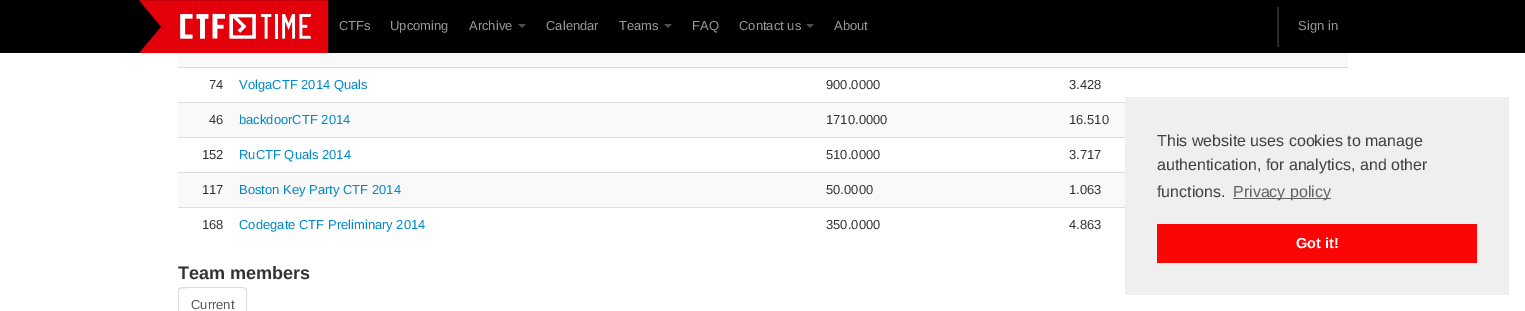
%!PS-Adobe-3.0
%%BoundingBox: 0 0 1525 311
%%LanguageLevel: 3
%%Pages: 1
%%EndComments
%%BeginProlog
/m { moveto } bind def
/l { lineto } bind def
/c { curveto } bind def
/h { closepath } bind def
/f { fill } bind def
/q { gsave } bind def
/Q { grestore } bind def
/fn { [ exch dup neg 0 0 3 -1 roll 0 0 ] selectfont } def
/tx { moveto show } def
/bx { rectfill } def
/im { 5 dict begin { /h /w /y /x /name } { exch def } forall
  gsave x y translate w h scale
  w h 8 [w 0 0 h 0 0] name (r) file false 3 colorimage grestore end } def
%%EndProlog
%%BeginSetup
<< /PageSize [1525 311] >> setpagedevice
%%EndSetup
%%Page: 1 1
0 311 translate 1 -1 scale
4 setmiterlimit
1 setgray
0 0 1525 311 bx
0 setgray
0 0 1525 53 bx
(image0.raw) 139 0 190 53 im
/LiberationSans-Regular 13 fn
0.6 setgray
(CTFs) 339 30 tx
(Upcoming) 390 30 tx
(Archive) 469 30 tx
0.302 setgray
518 24 m 526 24 l 522 28 l h f
0.6 setgray
(Calendar) 546 30 tx
(Teams) 619 30 tx
0.302 setgray
664 24 m 672 24 l 668 28 l h f
0.6 setgray
(FAQ) 692 30 tx
(Contact us) 739 30 tx
0.302 setgray
806 24 m 814 24 l 810 28 l h f
0.6 setgray
(About) 834 30 tx
0.133 setgray
1277 7 1 40 bx
0.2 setgray
1278 7 1 40 bx
0.6 setgray
(Sign in) 1298 30 tx
0.976 setgray
178 53 1170 14 bx
0.2 setgray
(74) 209 89 tx
0 0.533 0.8 setrgbcolor
(VolgaCTF 2014 Quals) 239 89 tx
0.2 setgray
(900.0000) 826 89 tx
0.867 setgray
178 67 1170 1 bx
0.2 setgray
(3.428) 1069 89 tx
0.976 setgray
178 103 947 34 bx
0.2 setgray
(46) 209 124 tx
0 0.533 0.8 setrgbcolor
(backdoorCTF 2014) 239 124 tx
0.2 setgray
(1710.0000) 826 124 tx
0.867 setgray
178 102 947 1 bx
0.2 setgray
(16.510) 1069 124 tx
(152) 202 159 tx
0 0.533 0.8 setrgbcolor
(RuCTF Quals 2014) 239 159 tx
0.2 setgray
(510.0000) 826 159 tx
0.867 setgray
178 137 947 1 bx
0.2 setgray
(3.717) 1069 159 tx
0.976 setgray
178 173 947 34 bx
0.2 setgray
(117) 202 194 tx
0 0.533 0.8 setrgbcolor
(Boston Key Party CTF 2014) 239 194 tx
0.2 setgray
(50.0000) 826 194 tx
0.867 setgray
178 172 947 1 bx
0.2 setgray
(1.063) 1069 194 tx
(168) 202 229 tx
0 0.533 0.8 setrgbcolor
(Codegate CTF Preliminary 2014) 239 229 tx
0.2 setgray
(350.0000) 826 229 tx
0.867 setgray
178 207 947 1 bx
0.2 setgray
(4.863) 1069 229 tx
q
178 260 1170 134 rectclip
/LiberationSans-Bold 18 fn
(Team members) 178 279 tx
Q
0.867 setgray
182 287 m 179 288 l 180 289 l 182 287 227 288 233 288 c 243 288 l 245 289 l 246 288 l 243 287 l h f
247 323 m 247 291 l 247 290 246.5 289 246 288 c 245 289 l 246 289 246 290 246 291 c 246 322 l h f
178 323 m 179 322 l 179 291 l 179 290 179 289 180 289 c 179 288 l 178.5 289 178 290 178 291 c h f
0.333 setgray
(Current) 191 309 tx
0.937 setgray
1125 97 384 198 bx
/LiberationSans-Regular 16 fn
0.251 setgray
(This website uses cookies to manage) 1157 146 tx
(authentication, for analytics, and other) 1157 170 tx
(functions.) 1157 197 tx
0.388 setgray
1233 198 98 1 bx
(Privacy policy) 1233 197 tx
0.984 0.02 0.02 setrgbcolor
1157 224 320 39 bx
/LiberationSans-Bold 14.5 fn
1 setgray
(Got it!) 1296 248 tx
showpage
%%EOF
